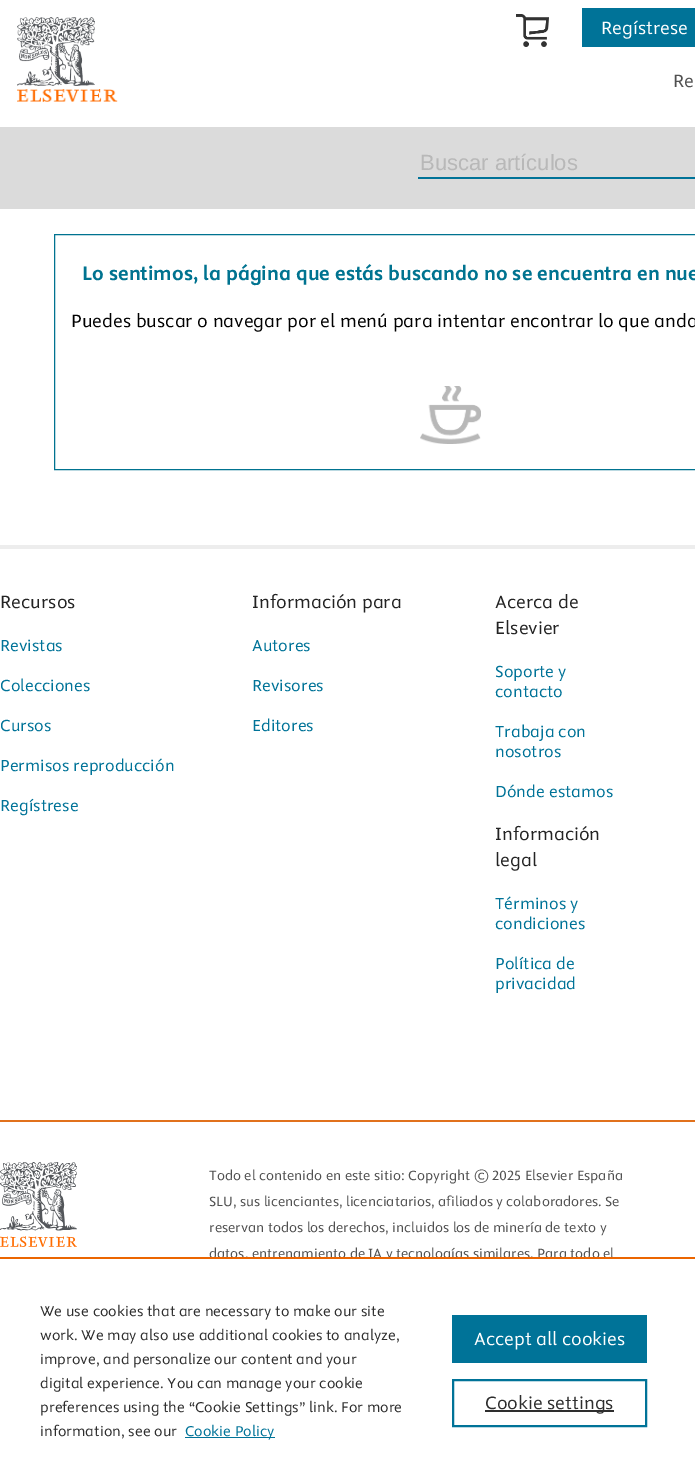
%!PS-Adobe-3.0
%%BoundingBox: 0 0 695 1483
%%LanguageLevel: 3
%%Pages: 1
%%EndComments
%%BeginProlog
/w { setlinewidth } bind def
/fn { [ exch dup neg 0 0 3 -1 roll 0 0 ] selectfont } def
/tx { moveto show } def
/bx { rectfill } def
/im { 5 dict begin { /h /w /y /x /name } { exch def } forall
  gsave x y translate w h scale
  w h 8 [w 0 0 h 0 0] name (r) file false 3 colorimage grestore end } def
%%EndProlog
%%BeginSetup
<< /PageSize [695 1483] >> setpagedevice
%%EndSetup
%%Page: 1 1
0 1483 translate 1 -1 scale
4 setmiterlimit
1 setgray
0 0 695 1483 bx
(image0.raw) 17 17 78 69 im
(image1.raw) 17 89 101 13 im
(image2.raw) 516 14 33 33 im
0 0.451 0.596 setrgbcolor
582 8 113 39 bx
/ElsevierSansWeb-Regular 20 fn
1 setgray
(Regístrese) 601 34 tx
0.314 setgray
(Re) 673 87 tx
0.859 setgray
0 127 695 82 bx
0 0.451 0.596 setrgbcolor
418 177 277 2 bx
/LiberationSans-Regular 22 fn
0.722 setgray
(Buscar artículos) 420 170 tx
0 0.451 0.565 setrgbcolor
54.5 234.5 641 235 rectstroke
/ElsevierSansWeb-Bold 22 fn
(Lo sentimos, la página que estás buscando no se encuentra en nue) 82 280 tx
/ElsevierSansWeb-Regular 20 fn
0 setgray
(Puedes buscar o navegar por el menú para intentar encontrar lo que anda) 71 327 tx
(image3.raw) 420 386 61 58 im
0.929 setgray
0 545 695 4 bx
0.137 setgray
(Recursos) 0 608 tx
/ElsevierSansWeb-Regular 18 fn
0 0.451 0.596 setrgbcolor
(Revistas) 0 651 tx
(Colecciones) 0 691 tx
(Cursos) 0 731 tx
(Permisos reproducción) 0 771 tx
(Regístrese) 0 811 tx
/ElsevierSansWeb-Regular 20 fn
0.137 setgray
(Información para) 252 608 tx
/ElsevierSansWeb-Regular 18 fn
0 0.451 0.596 setrgbcolor
(Autores) 252 651 tx
(Revisores) 252 691 tx
(Editores) 252 731 tx
/ElsevierSansWeb-Regular 20 fn
0.137 setgray
(Acerca de) 495 608 tx
(Elsevier) 495 634 tx
/ElsevierSansWeb-Regular 18 fn
0 0.451 0.596 setrgbcolor
(Soporte y) 495 677 tx
(contacto) 495 697 tx
(Trabaja con) 495 737 tx
(nosotros) 495 757 tx
(Dónde estamos) 495 797 tx
/ElsevierSansWeb-Regular 20 fn
0.137 setgray
(Información) 495 840 tx
(legal) 495 866 tx
/ElsevierSansWeb-Regular 18 fn
0 0.451 0.596 setrgbcolor
(Términos y) 495 909 tx
(condiciones) 495 929 tx
(Política de) 495 969 tx
(privacidad) 495 989 tx
0.882 0.443 0.11 setrgbcolor
0 1120 695 2 bx
(image4.raw) 0 1162 77 85 im
/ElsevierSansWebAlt-Regular 15 fn
0.314 setgray
(Todo el contenido en este sitio: Copyright © 2025 Elsevier España) 209 1180 tx
/ElsevierSansWeb-Regular 15 fn
(SLU, sus licenciantes, licenciatarios, afiliados y colaboradores. Se) 209 1206 tx
(reservan todos los derechos, incluidos los de minería de texto y) 209 1232 tx
(datos, entrenamiento de IA y tecnologías similares. Para todo el) 209 1258 tx
1 setgray
245 1259 206 3 bx
0.922 0.396 0 setrgbcolor
0 1257 695 2 bx
/ElsevierSansWeb-Regular 16 fn
0.18 setgray
(We use cookies that are necessary to make our site) 40 1316 tx
(work. We may also use additional cookies to analyze,) 40 1340 tx
(improve, and personalize our content and your) 40 1364 tx
(digital experience. You can manage your cookie) 40 1388 tx
(preferences using the “Cookie Settings” link. For more) 40 1412 tx
(information, see our) 40 1436 tx
0 0.451 0.596 setrgbcolor
185 1437 90 1 bx
(Cookie Policy) 185 1436 tx
452 1315 195 48 bx
/ElsevierSansWeb-Regular 20 fn
1 setgray
(Accept all cookies) 474 1345 tx
0 0.451 0.596 setrgbcolor
2 w
453 1380 193 46 rectstroke
0.18 setgray
485 1410 129 2 bx
(Cookie settings) 485 1409 tx
showpage
%%EOF
